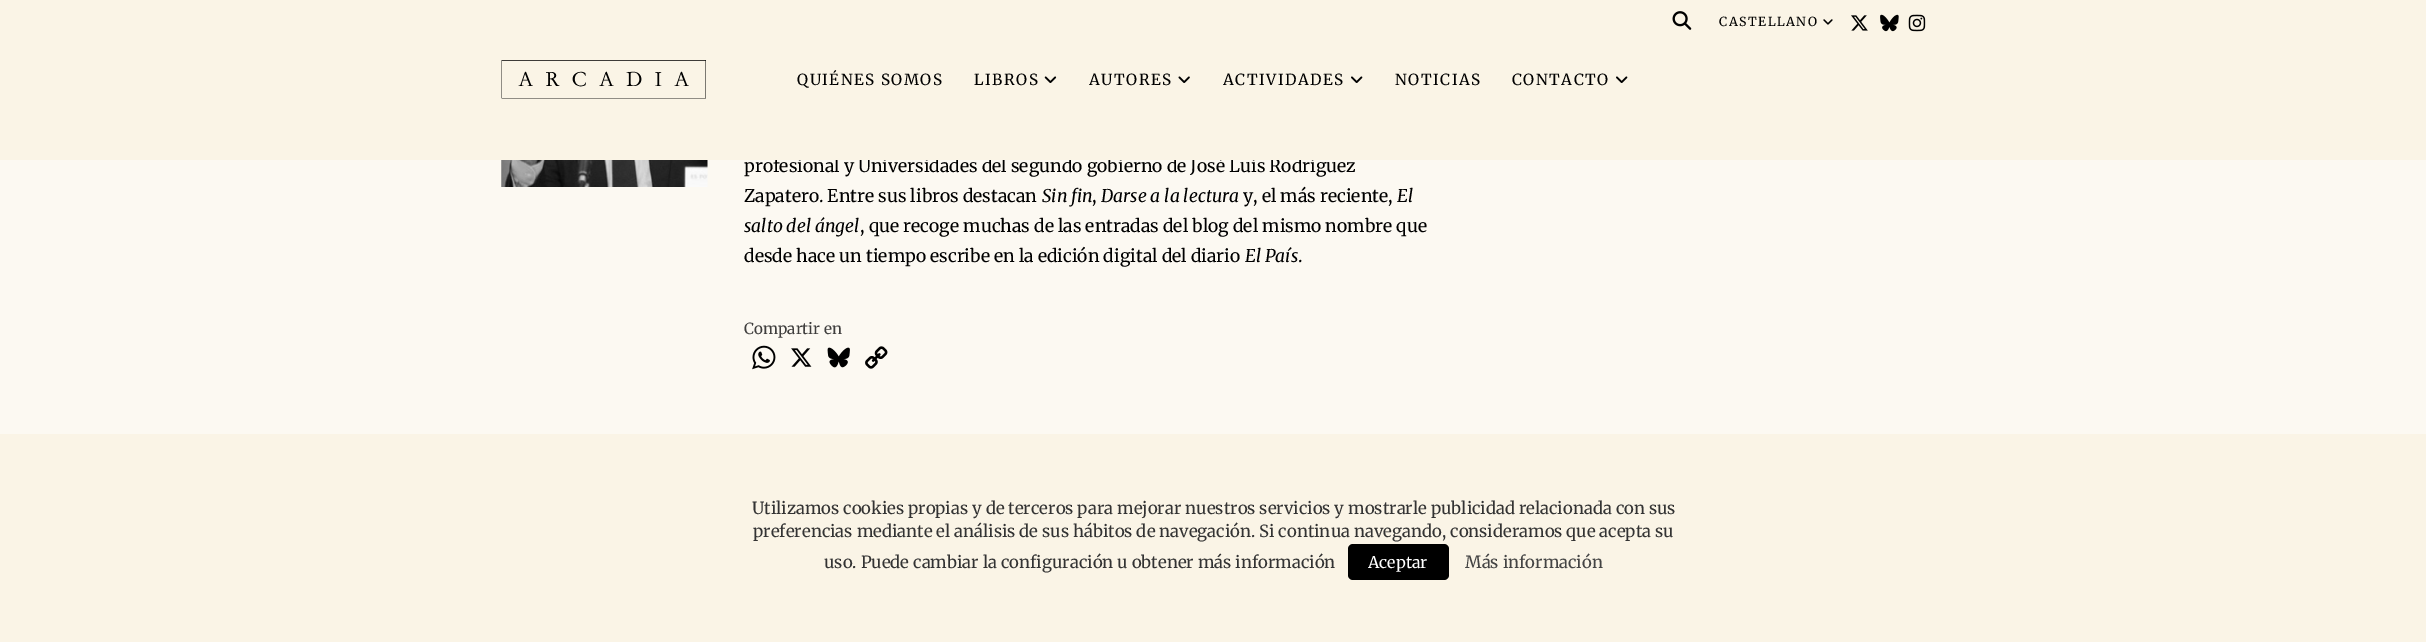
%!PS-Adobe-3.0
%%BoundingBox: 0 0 2426 642
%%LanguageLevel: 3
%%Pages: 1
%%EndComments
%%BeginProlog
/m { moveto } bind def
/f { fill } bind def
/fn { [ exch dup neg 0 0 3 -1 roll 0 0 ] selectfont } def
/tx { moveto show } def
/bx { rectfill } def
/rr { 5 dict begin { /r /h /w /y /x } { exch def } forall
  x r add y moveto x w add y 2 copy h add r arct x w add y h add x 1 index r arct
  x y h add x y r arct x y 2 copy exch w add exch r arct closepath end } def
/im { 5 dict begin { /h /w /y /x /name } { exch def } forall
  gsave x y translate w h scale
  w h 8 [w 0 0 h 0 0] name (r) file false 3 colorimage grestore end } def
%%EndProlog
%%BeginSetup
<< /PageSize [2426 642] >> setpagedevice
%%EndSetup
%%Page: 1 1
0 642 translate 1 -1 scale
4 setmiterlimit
0.988 0.976 0.949 setrgbcolor
0 0 2426 642 bx
/Merriweather-Regular 17.5 fn
0 setgray
(profesional y Universidades del segundo gobierno de José Luís Rodríguez) 744 172 tx
0.98 0.957 0.902 setrgbcolor
0 0 2426 160 bx
(image0.raw) 1672 11 20 19 im
/Merriweather-Regular 12.5 fn
0 setgray
1719 26 m 1.5 0 (CASTELLANO) ashow
(image1.raw) 1823 19 10 6 im
(image2.raw) 1851 15 17 16 im
(image3.raw) 1880 14 19 18 im
(image4.raw) 1908 14 18 18 im
(image5.raw) 501 60 205 39 im
/Merriweather-Regular 15.25 fn
797 85 m 1.5 0 (QUIÉNES SOMOS) ashow
974 85 m 1.5 0 (LIBROS) ashow
(image6.raw) 1044 76 13 7 im
1089 85 m 1.5 0 (AUTORES) ashow
(image7.raw) 1178 76 12 7 im
1223 85 m 1.5 0 (ACTIVIDADES) ashow
(image8.raw) 1351 76 12 7 im
1395 85 m 1.5 0 (NOTICIAS) ashow
1512 85 m 1.5 0 (CONTACTO) ashow
(image8.raw) 1616 76 12 7 im
(image9.raw) 501 160 207 27 im
/Merriweather-Regular 17.5 fn
(Zapatero. Entre sus libros destacan) 744 202 tx
/Merriweather-Italic 17.5 fn
(Sin fin) 1042 202 tx
/Merriweather-Regular 17.5 fn
(,) 1092 202 tx
/Merriweather-Italic 17.5 fn
(Darse a la lectura) 1101 202 tx
/Merriweather-Regular 17.5 fn
(y, el más reciente,) 1243 202 tx
/Merriweather-Italic 17.5 fn
(El) 1397 202 tx
(salto del ángel) 744 232 tx
/Merriweather-Regular 17.5 fn
(, que recoge muchas de las entradas del blog del mismo nombre que) 860 232 tx
(desde hace un tiempo escribe en la edición digital del diario) 744 262 tx
/Merriweather-Italic 17.5 fn
(El País) 1245 262 tx
/Merriweather-Regular 17.5 fn
(.) 1298 262 tx
/Merriweather-Regular 15.25 fn
0.247 0.243 0.239 setrgbcolor
(Compartir en) 744 334 tx
(image10.raw) 752 345 24 25 im
(image11.raw) 791 348 21 19 im
(image12.raw) 827 347 23 21 im
(image13.raw) 865 346 23 23 im
0.98 0.957 0.902 setrgbcolor
0 434 2426 208 bx
/Merriweather-Regular 16.67 fn
0.2 setgray
(Utilizamos cookies propias y de terceros para mejorar nuestros servicios y mostrarle publicidad relacionada con sus) 752 514 tx
(preferencias mediante el análisis de sus hábitos de navegación. Si continua navegando, consideramos que acepta su) 753 537 tx
(uso. Puede cambiar la configuración u obtener más información) 824 568 tx
0 setgray
1348 544 101 36 5 rr f
/Merriweather-Regular 16 fn
1 setgray
(Aceptar) 1368 568 tx
/Merriweather-Regular 16.67 fn
0.267 setgray
(Más información) 1465 568 tx
showpage
%%EOF
